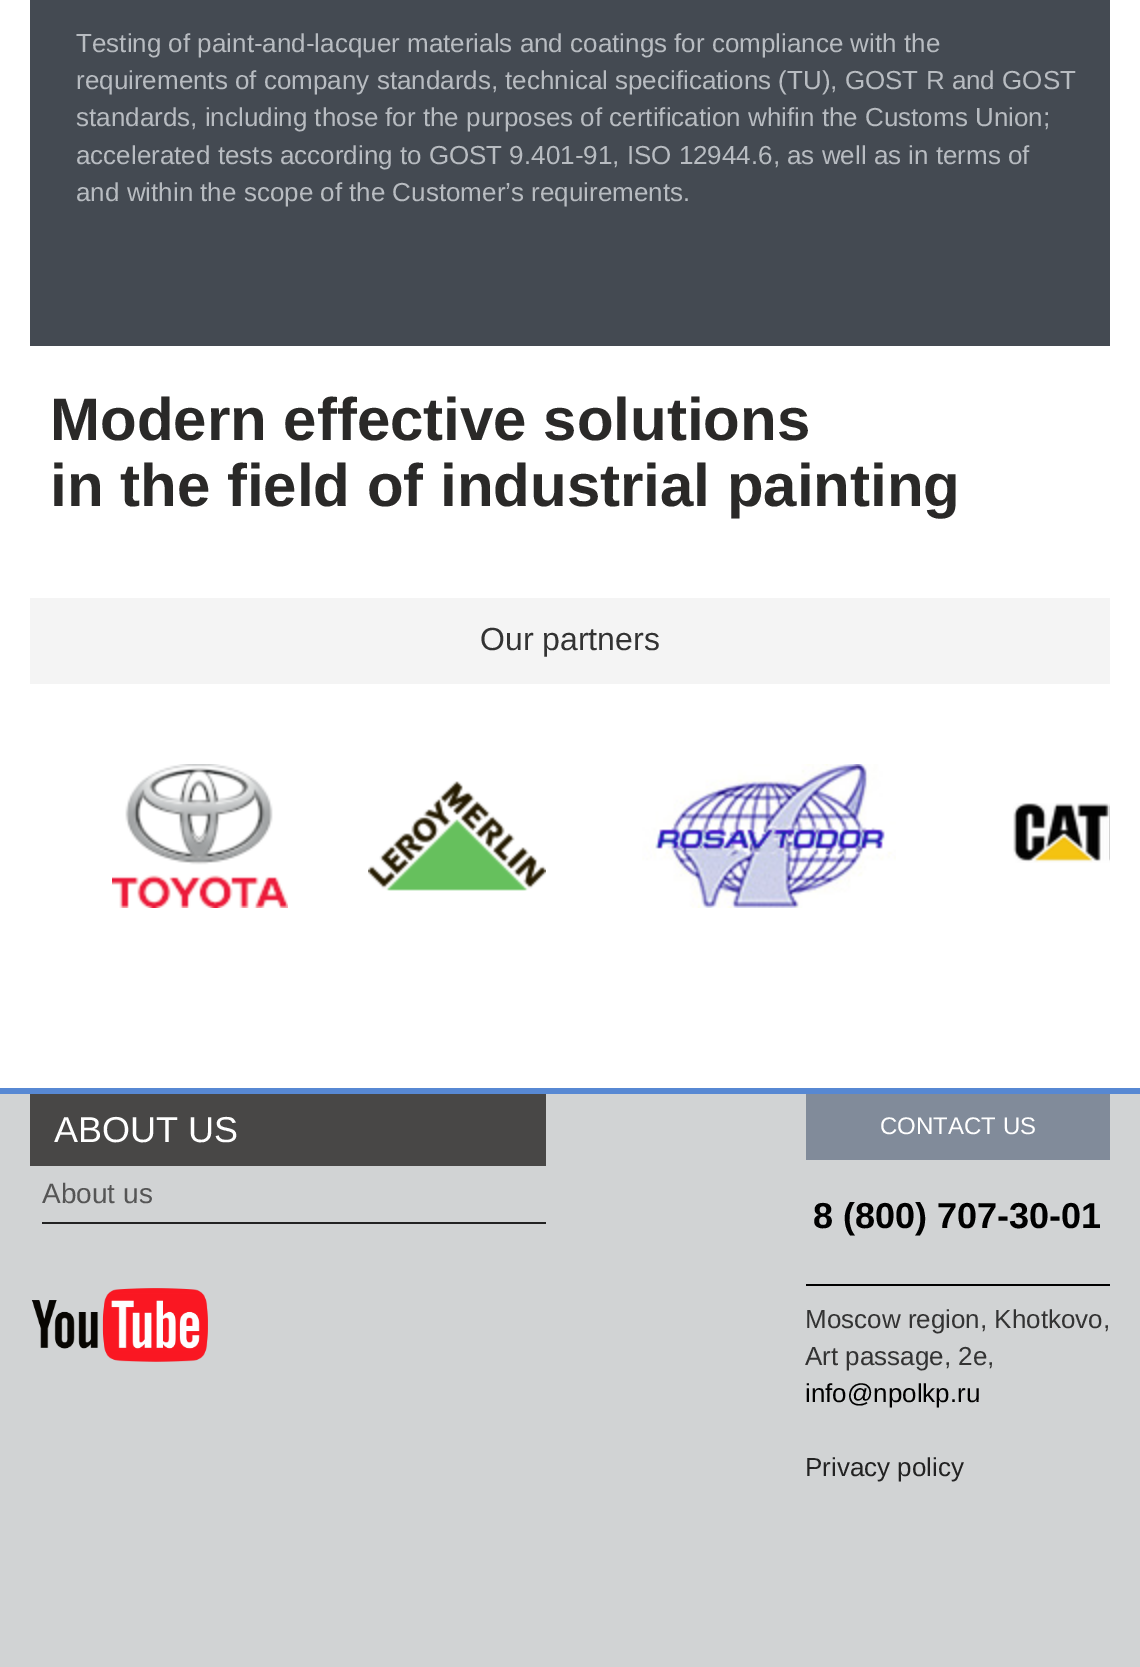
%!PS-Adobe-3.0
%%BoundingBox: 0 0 1140 1667
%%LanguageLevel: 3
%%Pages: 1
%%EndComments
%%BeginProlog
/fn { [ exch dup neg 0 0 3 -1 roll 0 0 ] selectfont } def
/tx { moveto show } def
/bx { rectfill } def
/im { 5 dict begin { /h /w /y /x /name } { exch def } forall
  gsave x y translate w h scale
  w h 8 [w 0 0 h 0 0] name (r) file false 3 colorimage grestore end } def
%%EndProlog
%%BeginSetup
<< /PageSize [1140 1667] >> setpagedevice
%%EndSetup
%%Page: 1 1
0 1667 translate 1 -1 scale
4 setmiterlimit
1 setgray
0 0 1140 1667 bx
0.267 0.29 0.322 setrgbcolor
30 0 1080 346 bx
/LiberationSans-Regular 26 fn
0.722 0.737 0.757 setrgbcolor
(Testing of paint-and-lacquer materials and coatings for compliance with the) 76 52 tx
(requirements of company standards, technical specifications \(TU\), GOST R and GOST) 76 89 tx
(standards, including those for the purposes of certification whifin the Customs Union;) 76 126 tx
(accelerated tests according to GOST 9.401-91, ISO 12944.6, as well as in terms of) 76 164 tx
(and within the scope of the Customer’s requirements.) 76 201 tx
/LiberationSans-Bold 60 fn
0.165 0.161 0.157 setrgbcolor
(Modern effective solutions) 50 440 tx
(in the field of industrial painting) 50 506 tx
0.957 setgray
30 598 1080 86 bx
/LiberationSans-Regular 32 fn
0.2 setgray
(Our partners) 480 650 tx
(image0.raw) 112 764 176 144 im
(image1.raw) 368 781 178 110 im
(image2.raw) 642 764 254 144 im
(image3.raw) 1013 803 97 60 im
0.82 0.827 0.831 setrgbcolor
0 1094 1140 573 bx
0.341 0.533 0.827 setrgbcolor
0 1088 1140 6 bx
0.282 0.278 0.275 setrgbcolor
30 1094 516 72 bx
/LiberationSans-Regular 36 fn
1 setgray
(ABOUT US) 54 1142 tx
0.133 setgray
42 1222 504 2 bx
/LiberationSans-Regular 28 fn
0.333 setgray
(About us) 42 1203 tx
(image4.raw) 31 1288 177 74 im
0.506 0.545 0.604 setrgbcolor
806 1094 304 66 bx
/LiberationSans-Regular 24 fn
1 setgray
(CONTACT US) 880 1134 tx
/LiberationSans-Bold 36 fn
0 setgray
(8 \(800\) 707-30-01) 813 1228 tx
806 1284 304 2 bx
/LiberationSans-Regular 26 fn
0.2 setgray
(Moscow region, Khotkovo,) 805 1328 tx
(Art passage, 2e,) 805 1365 tx
0 setgray
(info@npolkp.ru) 805 1402 tx
0.133 setgray
(Privacy policy) 805 1476 tx
showpage
%%EOF
